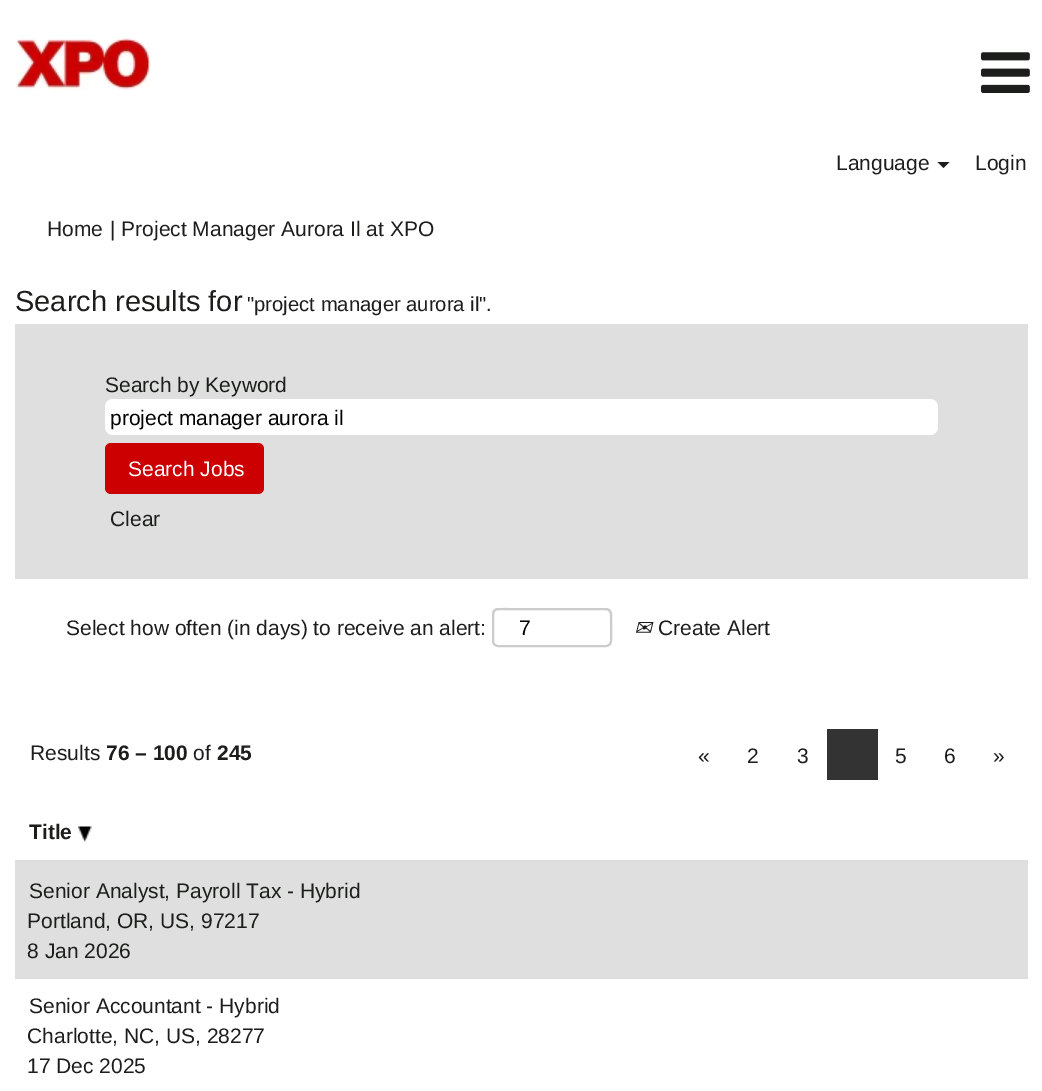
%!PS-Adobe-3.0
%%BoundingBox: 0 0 1042 1091
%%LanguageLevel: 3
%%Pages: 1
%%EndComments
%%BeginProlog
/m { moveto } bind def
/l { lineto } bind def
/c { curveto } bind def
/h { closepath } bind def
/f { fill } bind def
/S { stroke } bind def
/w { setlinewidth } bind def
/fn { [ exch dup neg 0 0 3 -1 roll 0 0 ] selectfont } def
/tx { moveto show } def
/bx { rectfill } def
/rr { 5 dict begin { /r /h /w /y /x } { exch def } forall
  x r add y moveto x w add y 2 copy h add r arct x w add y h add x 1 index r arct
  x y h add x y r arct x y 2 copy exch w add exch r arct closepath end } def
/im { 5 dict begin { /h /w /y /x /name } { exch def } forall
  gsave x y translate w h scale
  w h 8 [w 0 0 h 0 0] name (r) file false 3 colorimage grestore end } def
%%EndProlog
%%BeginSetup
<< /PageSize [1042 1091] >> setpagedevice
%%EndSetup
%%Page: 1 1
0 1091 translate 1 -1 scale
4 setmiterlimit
1 setgray
0 0 1042 1091 bx
(image0.raw) 16 37 135 53 im
(image1.raw) 981 52 49 41 im
/LiberationSans-Regular 21 fn
0.11 0.118 0.11 setrgbcolor
(Language) 836 170 tx
937.5 162 m 949.5 162 l 943.5 168 l h f
(Login) 975 170 tx
(Home) 47 236 tx
(| Project Manager Aurora Il at XPO) 110 236 tx
/LiberationSans-Regular 29 fn
(Search results for) 15 311 tx
/LiberationSans-Regular 20.25 fn
("project manager aurora il".) 247 311 tx
0.875 setgray
15 324 1013 255 bx
/LiberationSans-Regular 21 fn
0.11 0.118 0.11 setrgbcolor
(Search by Keyword) 105 392 tx
1 setgray
105 399 833 36 8 rr f
0 setgray
(project manager aurora il) 110 425 tx
0.8 0 0 setrgbcolor
105 443 159 51 6 rr f
1 setgray
(Search Jobs) 128 476 tx
0.11 0.118 0.11 setrgbcolor
(Clear) 110 526 tx
(Select how often \(in days\) to receive an alert:) 66 635 tx
0.925 setgray
498 610 m 588 610 l 609 610 610 606 610 624 c 610 643 l 612 640 611 630 611 627 c 611 605 613 609 588 609 c 517 609 l 512 609 494 604 494 615 c 494 613 496 610 498 610 c h f
0.8 setgray
2 w
493 609 118 37 5 rr S
0 setgray
(7) 519 635 tx
/DejaVuSans-Italic 21 fn
0.11 0.118 0.11 setrgbcolor
(✉) 634 635 tx
/LiberationSans-Regular 21 fn
(Create Alert) 658 635 tx
(Results) 30 760 tx
/LiberationSans-Bold 21 fn
(76 – 100) 106 760 tx
/LiberationSans-Regular 21 fn
(of) 193 760 tx
/LiberationSans-Bold 21 fn
(245) 217 760 tx
/LiberationSans-Regular 21 fn
(«) 698 763 tx
(2) 747 763 tx
(3) 797 763 tx
0.2 setgray
827 729 51 51 bx
0.11 0.118 0.11 setrgbcolor
(5) 895 763 tx
(6) 944 763 tx
(») 993 763 tx
0.867 setgray
15 860 1013 3 bx
/LiberationSans-Bold 21 fn
0.11 0.118 0.11 setrgbcolor
(Title) 29 839 tx
(image2.raw) 78 826 14 16 im
0.875 setgray
15 863 1013 114 bx
/LiberationSans-Regular 21 fn
0.11 0.118 0.11 setrgbcolor
(Senior Analyst, Payroll Tax - Hybrid) 29 898 tx
(Portland, OR, US, 97217) 27 928 tx
(8 Jan 2026) 27 958 tx
0.867 setgray
15 977 1013 2 bx
0.11 0.118 0.11 setrgbcolor
(Senior Accountant - Hybrid) 29 1013 tx
(Charlotte, NC, US, 28277) 27 1043 tx
(17 Dec 2025) 27 1073 tx
showpage
%%EOF
